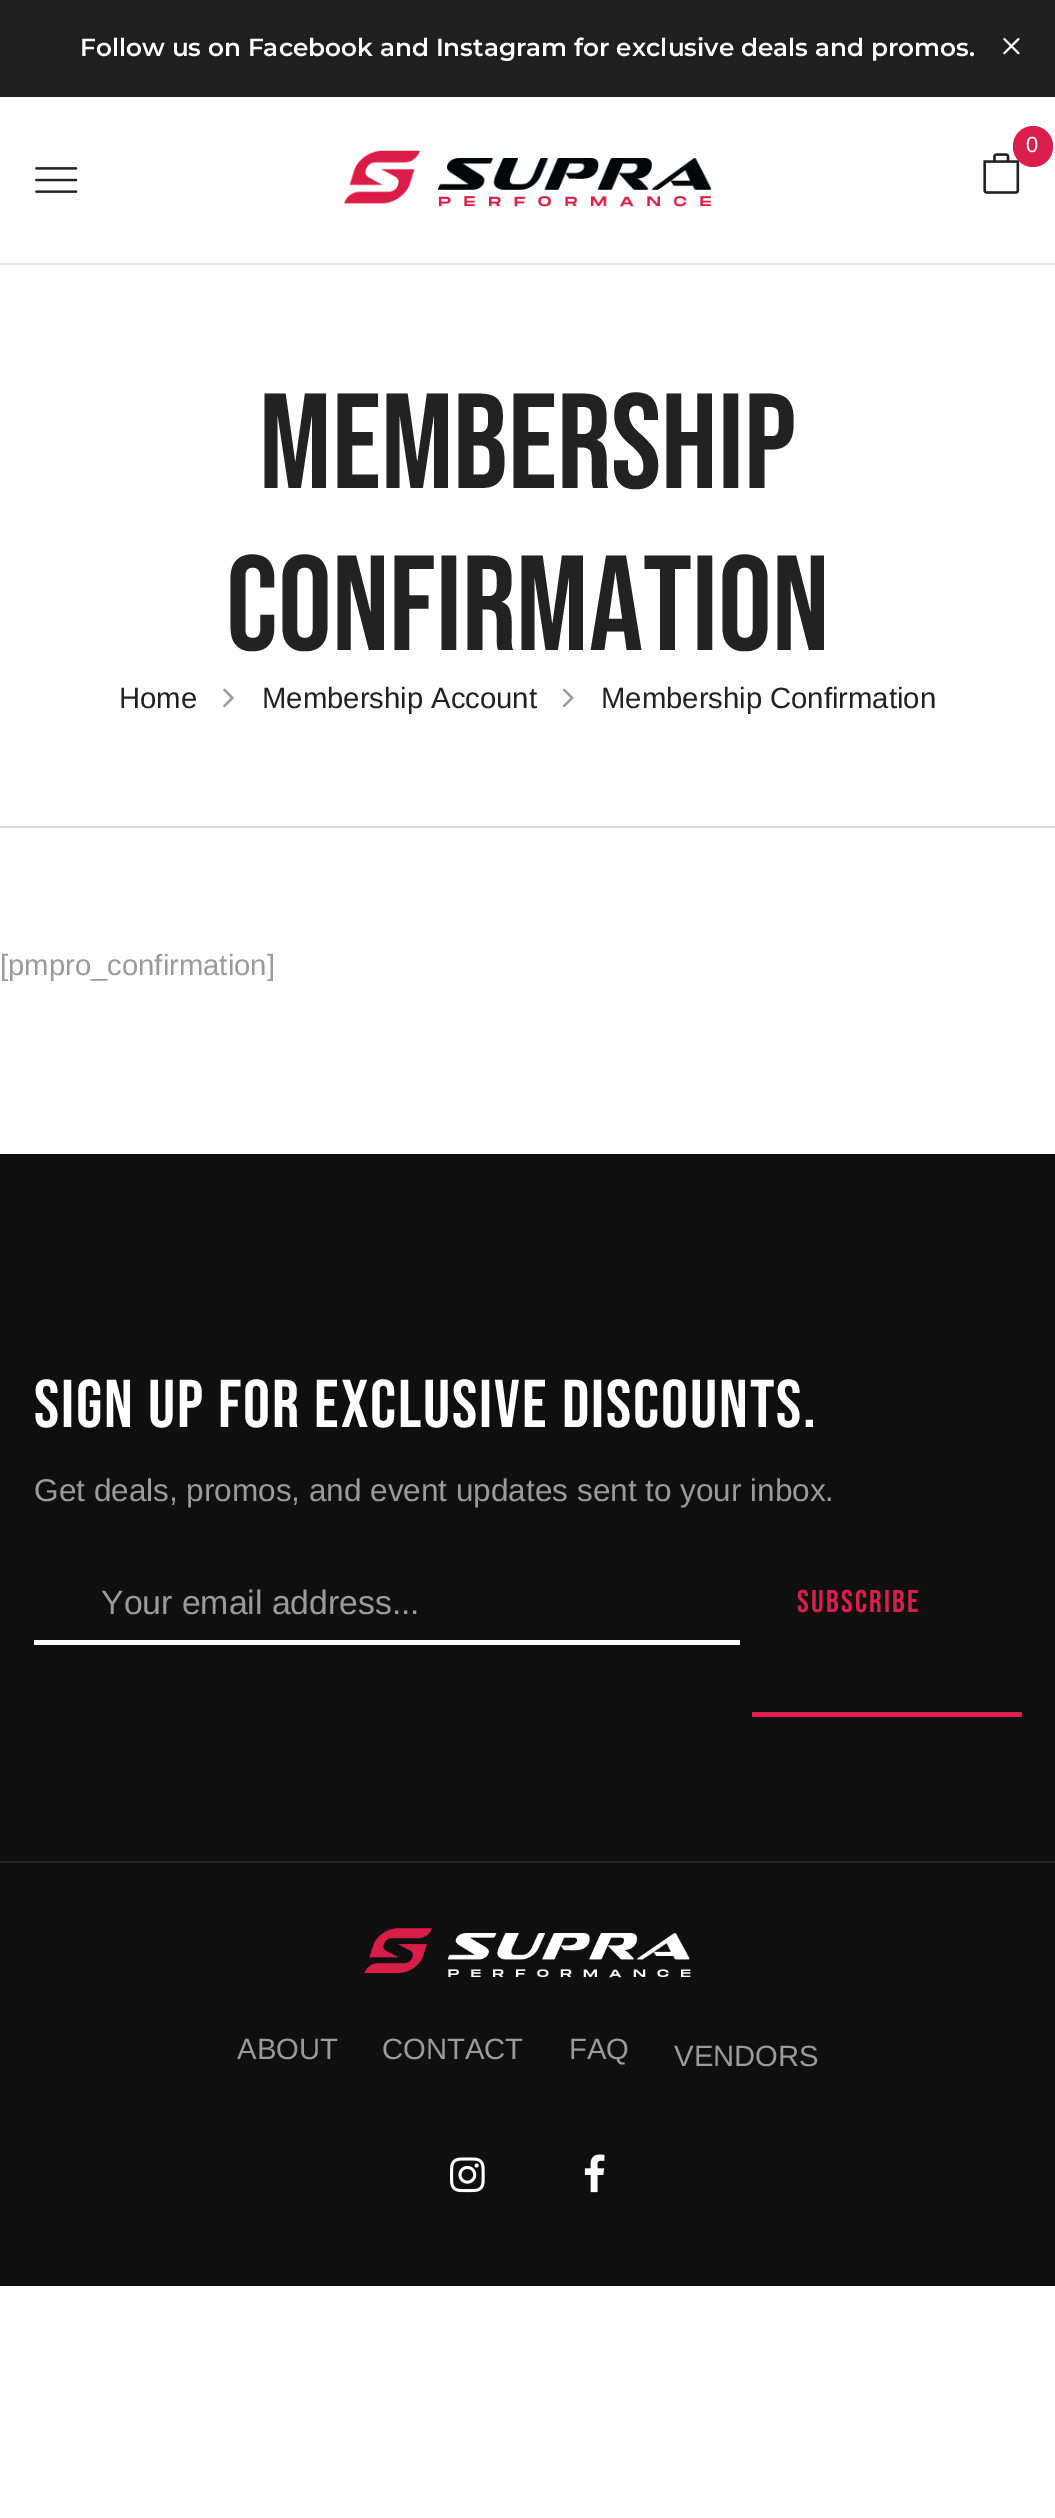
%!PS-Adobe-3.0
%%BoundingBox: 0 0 1055 2518
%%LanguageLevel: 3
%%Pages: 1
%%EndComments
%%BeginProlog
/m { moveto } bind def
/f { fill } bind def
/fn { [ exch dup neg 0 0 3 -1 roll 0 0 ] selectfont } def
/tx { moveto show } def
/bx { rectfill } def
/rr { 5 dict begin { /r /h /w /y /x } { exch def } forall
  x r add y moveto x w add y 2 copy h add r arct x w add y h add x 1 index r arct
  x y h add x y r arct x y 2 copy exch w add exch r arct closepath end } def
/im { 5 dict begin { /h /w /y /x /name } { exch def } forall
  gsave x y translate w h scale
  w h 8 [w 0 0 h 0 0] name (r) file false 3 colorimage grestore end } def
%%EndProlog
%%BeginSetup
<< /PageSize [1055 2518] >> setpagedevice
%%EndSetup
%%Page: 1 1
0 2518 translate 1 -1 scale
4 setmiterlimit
1 setgray
0 0 1055 2518 bx
0.122 setgray
0 0 1055 97 bx
/Montserrat-SemiBold 24.75 fn
1 setgray
(Follow us on Facebook and Instagram for exclusive deals and promos.) 80 56 tx
(image0.raw) 1003 38 17 17 im
0.898 setgray
0 263 1055 2 bx
(image1.raw) 983 153 37 41 im
0.859 0.118 0.298 setrgbcolor
1013 126 40 41 20 rr f
/LiberationSans-Regular 22 fn
1 setgray
(0) 1026 152 tx
(image2.raw) 35 167 43 26 im
(image3.raw) 344 150 367 57 im
0.859 setgray
0 826 1055 2 bx
/BebasNeue-Regular 135 fn
0.133 setgray
(Membership) 259 488 tx
(Confirmation) 226 650 tx
/LiberationSans-Regular 29.25 fn
(Home) 119 708 tx
(image4.raw) 223 688 11 20 im
(Membership Account) 262 708 tx
(image5.raw) 562 688 12 20 im
(Membership Confirmation) 601 708 tx
0.608 setgray
([pmpro_confirmation]) 0 975 tx
0.059 setgray
0 1154 1055 707 bx
0.149 setgray
0 1861 1055 2 bx
/BebasNeue-Regular 67.5 fn
1 setgray
34 1427 m 2 0 (SIGN UP FOR EXCLUSIVE DISCOUNTS.) ashow
/LiberationSans-Regular 31.5 fn
0.608 setgray
(Get deals, promos, and event updates sent to your inbox.) 34 1501 tx
1 setgray
34 1640 706 5 bx
/LiberationSans-Regular 33.75 fn
0.608 setgray
(Your email address...) 101 1614 tx
0.859 0.118 0.298 setrgbcolor
752 1712 270 5 bx
/BebasNeue-Regular 31.5 fn
797 1612 m 2.25 0 (SUBSCRIBE) ashow
0.059 setgray
0 1863 1055 423 bx
(image6.raw) 364 1928 327 50 im
/LiberationSans-Regular 29.25 fn
0.608 setgray
(ABOUT) 237 2059 tx
(CONTACT) 382 2059 tx
(FAQ) 569 2059 tx
(VENDORS) 674 2066 tx
(image7.raw) 450 2157 35 36 im
(image8.raw) 584 2154 21 39 im
showpage
%%EOF
